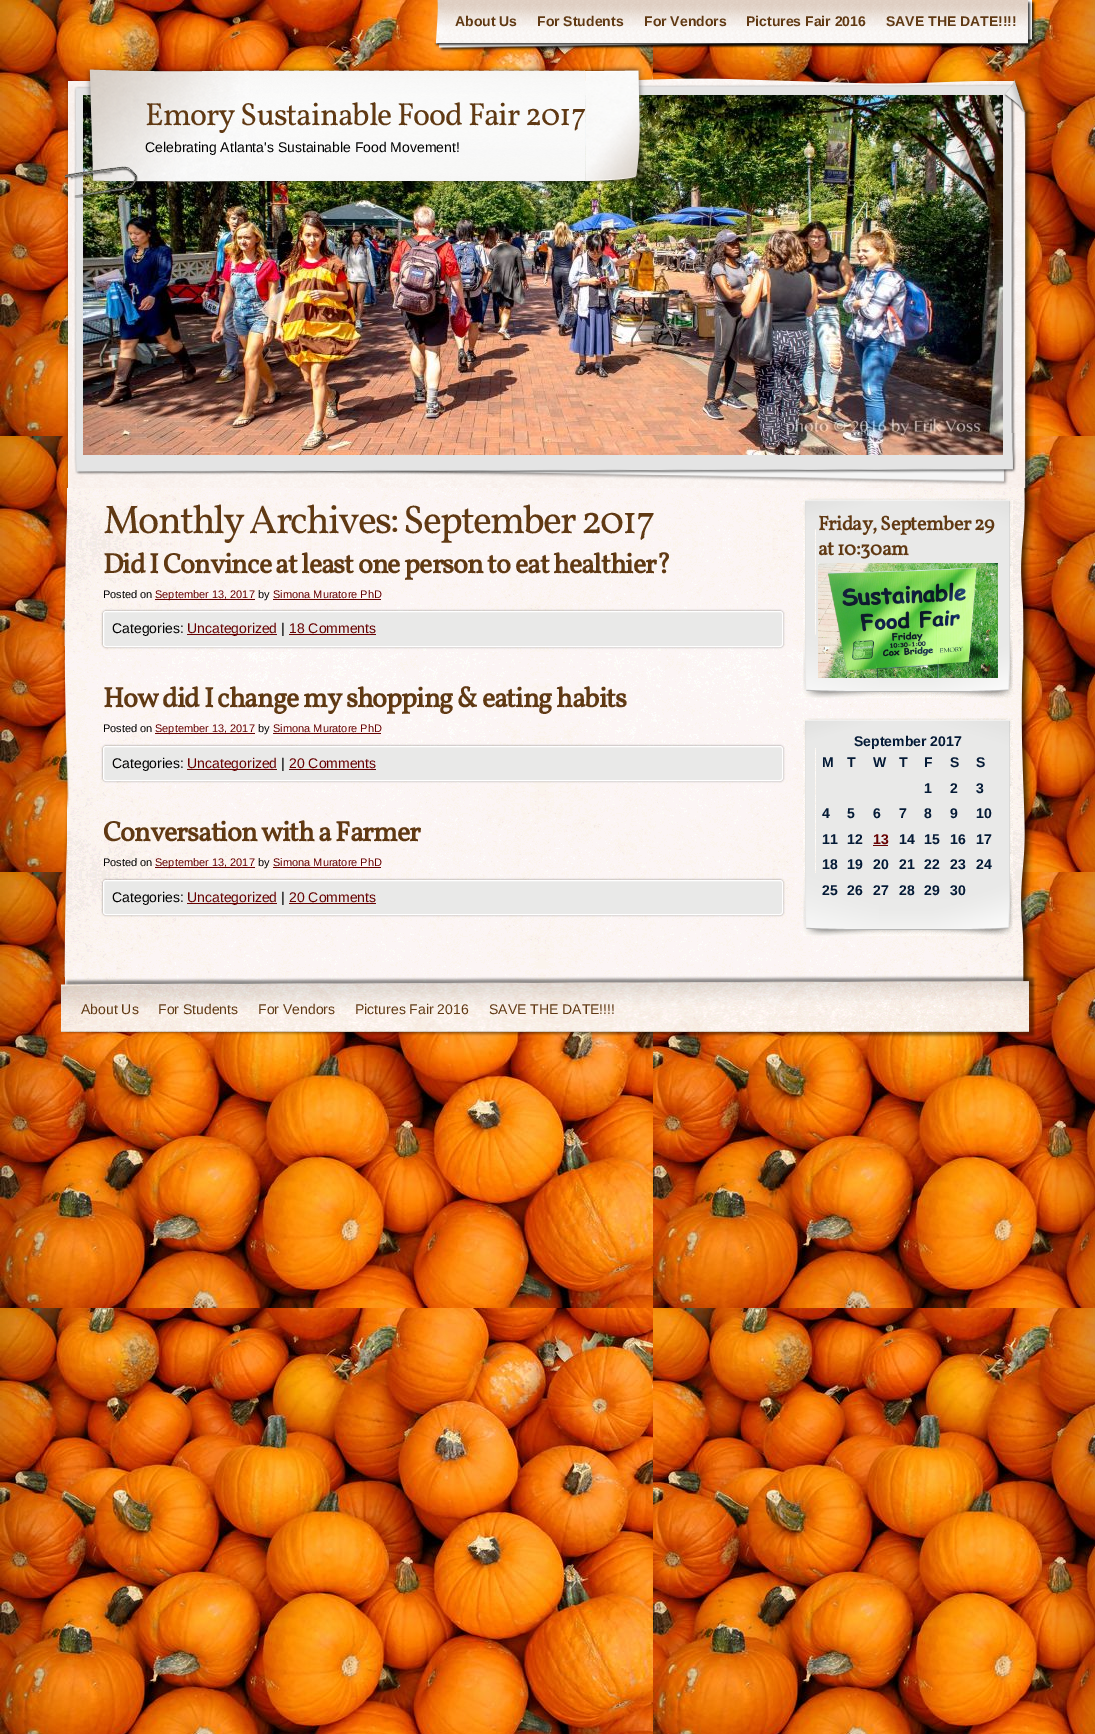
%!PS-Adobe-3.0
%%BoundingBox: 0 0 1095 1734
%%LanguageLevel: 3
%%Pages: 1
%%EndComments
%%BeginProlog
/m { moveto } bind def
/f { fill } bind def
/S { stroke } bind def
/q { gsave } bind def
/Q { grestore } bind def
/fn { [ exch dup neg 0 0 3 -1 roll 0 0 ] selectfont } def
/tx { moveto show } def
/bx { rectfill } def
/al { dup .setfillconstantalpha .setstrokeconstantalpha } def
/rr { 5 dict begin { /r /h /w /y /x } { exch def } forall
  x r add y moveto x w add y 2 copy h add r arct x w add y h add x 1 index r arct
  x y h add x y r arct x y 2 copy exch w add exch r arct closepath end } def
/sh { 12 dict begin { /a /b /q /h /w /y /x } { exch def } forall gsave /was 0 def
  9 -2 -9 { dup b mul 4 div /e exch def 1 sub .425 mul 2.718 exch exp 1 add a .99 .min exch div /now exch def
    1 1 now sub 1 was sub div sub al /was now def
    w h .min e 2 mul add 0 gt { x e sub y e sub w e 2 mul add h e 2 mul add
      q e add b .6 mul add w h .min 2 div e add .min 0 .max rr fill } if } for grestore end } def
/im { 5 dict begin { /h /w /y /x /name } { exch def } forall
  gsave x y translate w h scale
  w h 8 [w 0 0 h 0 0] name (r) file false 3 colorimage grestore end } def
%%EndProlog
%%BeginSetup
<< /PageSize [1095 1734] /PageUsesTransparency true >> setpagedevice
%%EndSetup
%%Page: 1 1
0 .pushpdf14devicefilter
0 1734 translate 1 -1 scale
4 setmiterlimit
1 setgray
0 0 1095 1734 bx
(image0.raw) 0 0 1095 1734 im
(image1.raw) 0 0 1095 1734 im
(image2.raw) 436 0 9 44 im
(image3.raw) 1027 0 9 48 im
(image4.raw) 445 0 582 48 im
/LiberationSans-Bold 14 fn
0.376 0.224 0.075 setrgbcolor
(About Us) 455 26 tx
(For Students) 537 26 tx
(For Vendors) 644 26 tx
(Pictures Fair 2016) 746 26 tx
(SAVE THE DATE!!!!) 886 26 tx
(image5.raw) 434 43 594 9 im
(image6.raw) 65 112 969 376 im
(image7.raw) 65 77 968 55 im
(image8.raw) 71 433 954 55 im
(image9.raw) 83 95 920 360 im
(image10.raw) 585 65 66 121 im
(image11.raw) 65 66 520 132 im
/Vollkorn-Regular 32 fn
145 125 m -1 0 (Emory Sustainable Food Fair 2017) ashow
/LiberationSans-Regular 14 fn
0 setgray
(Celebrating Atlanta's Sustainable Food Movement!) 145 152 tx
(image12.raw) 62 488 973 512 im
/Vollkorn-Regular 40 fn
0.376 0.224 0.075 setrgbcolor
103 533 m -2 0 (Monthly Archives: September 2017) ashow
/Vollkorn-Bold 28 fn
103 573 m -1 0 (Did I Convince at least one person to eat healthier?) ashow
/LiberationSans-Regular 11 fn
0 setgray
(Posted on) 103 598 tx
0.4 0 0 setrgbcolor
155 599 100 1 bx
(September 13, 2017) 155 598 tx
0 setgray
(by) 258 598 tx
0.4 0 0 setrgbcolor
(Simona Muratore PhD) 273 598 tx
273 599 108 1 bx
0 setgray
103 611 680 36 3 1 0.5 sh
0.914 0.914 0.91 setrgbcolor
103.5 611.5 679 35 2.5 rr q f Q
1 setgray
S
/LiberationSans-Regular 14 fn
0 setgray
(Categories:) 112 633 tx
0.4 0 0 setrgbcolor
187 634 90 1 bx
(Uncategorized) 187 633 tx
0 setgray
(|) 281 633 tx
0.4 0 0 setrgbcolor
(18 Comments) 289 633 tx
289 634 87 1 bx
/Vollkorn-Bold 28 fn
0.376 0.224 0.075 setrgbcolor
103 707 m -1 0 (How did I change my shopping & eating habits) ashow
/LiberationSans-Regular 11 fn
0 setgray
(Posted on) 103 732 tx
0.4 0 0 setrgbcolor
155 733 100 1 bx
(September 13, 2017) 155 732 tx
0 setgray
(by) 258 732 tx
0.4 0 0 setrgbcolor
(Simona Muratore PhD) 273 732 tx
273 733 108 1 bx
0 setgray
103 746 680 35 3 1 0.5 sh
0.914 0.914 0.91 setrgbcolor
103.5 746.5 679 34 2.5 rr q f Q
1 setgray
S
/LiberationSans-Regular 14 fn
0 setgray
(Categories:) 112 768 tx
0.4 0 0 setrgbcolor
187 769 90 1 bx
(Uncategorized) 187 768 tx
0 setgray
(|) 281 768 tx
0.4 0 0 setrgbcolor
(20 Comments) 289 768 tx
289 769 87 1 bx
/Vollkorn-Bold 28 fn
0.376 0.224 0.075 setrgbcolor
103 841 m -1 0 (Conversation with a Farmer) ashow
/LiberationSans-Regular 11 fn
0 setgray
(Posted on) 103 866 tx
0.4 0 0 setrgbcolor
155 867 100 1 bx
(September 13, 2017) 155 866 tx
0 setgray
(by) 258 866 tx
0.4 0 0 setrgbcolor
(Simona Muratore PhD) 273 866 tx
273 867 108 1 bx
0 setgray
103 880 680 35 3 1 0.5 sh
0.914 0.914 0.91 setrgbcolor
103.5 880.5 679 34 2.5 rr q f Q
1 setgray
S
/LiberationSans-Regular 14 fn
0 setgray
(Categories:) 112 902 tx
0.4 0 0 setrgbcolor
187 903 90 1 bx
(Uncategorized) 187 902 tx
0 setgray
(|) 281 902 tx
0.4 0 0 setrgbcolor
(20 Comments) 289 902 tx
289 903 87 1 bx
0.914 0.914 0.91 setrgbcolor
816 529 185 106 bx
(image13.raw) 803 498 210 200 im
/Vollkorn-Bold 20 fn
0.376 0.224 0.075 setrgbcolor
818 530 m -0.5 0 (Friday, September 29) ashow
818 555 m -0.5 0 (at 10:30am) ashow
(image14.raw) 818 563 180 115 im
0.914 0.914 0.91 setrgbcolor
816 748 185 125 bx
(image15.raw) 803 718 210 218 im
/LiberationSans-Bold 14 fn
0.016 0.102 0.212 setrgbcolor
(September 2017) 854 746 tx
(M) 822 767 tx
(T) 847 767 tx
(W) 873 767 tx
(T) 899 767 tx
(F) 924 767 tx
(S) 950 767 tx
(S) 976 767 tx
(1) 924 793 tx
(2) 950 793 tx
(3) 976 793 tx
(4) 822 818 tx
(5) 847 818 tx
(6) 873 818 tx
(7) 899 818 tx
(8) 924 818 tx
(9) 950 818 tx
(10) 976 818 tx
(11) 822 844 tx
(12) 847 844 tx
0.4 0 0 setrgbcolor
(13) 873 844 tx
873 845 15 1 bx
0.016 0.102 0.212 setrgbcolor
(14) 899 844 tx
(15) 924 844 tx
(16) 950 844 tx
(17) 976 844 tx
(18) 822 869 tx
(19) 847 869 tx
(20) 873 869 tx
(21) 899 869 tx
(22) 924 869 tx
(23) 950 869 tx
(24) 976 869 tx
(25) 822 895 tx
(26) 847 895 tx
(27) 873 895 tx
(28) 899 895 tx
(29) 924 895 tx
(30) 950 895 tx
(image16.raw) 61 975 975 63 im
/LiberationSans-Regular 14 fn
0.376 0.224 0.075 setrgbcolor
(About Us) 81 1014 tx
(For Students) 158 1014 tx
(For Vendors) 258 1014 tx
(Pictures Fair 2016) 355 1014 tx
(SAVE THE DATE!!!!) 489 1014 tx
.poppdf14devicefilter showpage
%%EOF
